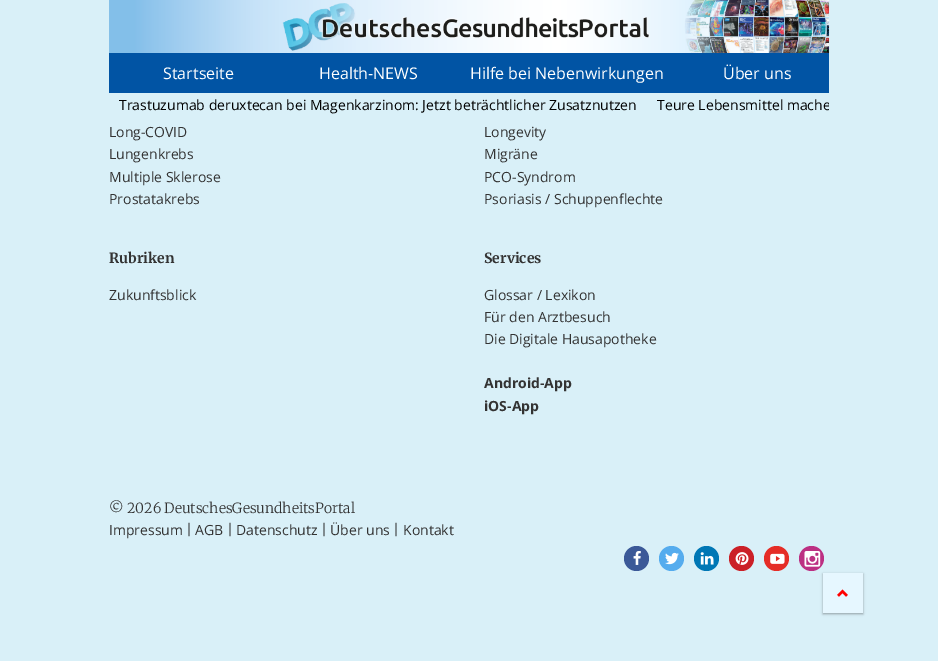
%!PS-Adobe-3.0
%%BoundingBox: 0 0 938 661
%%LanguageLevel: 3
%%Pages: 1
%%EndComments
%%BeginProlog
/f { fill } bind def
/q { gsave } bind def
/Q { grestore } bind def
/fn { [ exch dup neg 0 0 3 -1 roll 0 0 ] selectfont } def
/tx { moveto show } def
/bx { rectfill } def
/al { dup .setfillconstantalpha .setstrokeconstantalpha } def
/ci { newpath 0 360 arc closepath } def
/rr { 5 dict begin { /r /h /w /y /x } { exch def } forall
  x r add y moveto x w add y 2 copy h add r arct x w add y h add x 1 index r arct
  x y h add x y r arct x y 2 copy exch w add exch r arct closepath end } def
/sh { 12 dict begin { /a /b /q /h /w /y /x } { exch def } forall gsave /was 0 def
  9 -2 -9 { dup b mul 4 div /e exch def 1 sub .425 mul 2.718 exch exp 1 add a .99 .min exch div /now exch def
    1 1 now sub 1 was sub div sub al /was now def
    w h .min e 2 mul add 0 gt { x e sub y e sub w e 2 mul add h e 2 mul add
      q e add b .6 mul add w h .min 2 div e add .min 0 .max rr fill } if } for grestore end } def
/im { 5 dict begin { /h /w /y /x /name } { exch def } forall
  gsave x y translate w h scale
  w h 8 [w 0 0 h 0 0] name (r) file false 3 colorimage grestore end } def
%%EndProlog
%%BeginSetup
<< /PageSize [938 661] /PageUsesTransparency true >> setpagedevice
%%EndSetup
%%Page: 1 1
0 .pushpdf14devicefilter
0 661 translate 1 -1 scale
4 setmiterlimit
0.851 0.941 0.973 setrgbcolor
0 0 938 661 bx
(image0.raw) 109 0 721 53 im
0.004 0.329 0.643 setrgbcolor
109 53 720 40 bx
/OpenSans-Regular 16 fn
1 setgray
(Startseite) 163 79 tx
(Health-NEWS) 319 79 tx
(Hilfe bei Nebenwirkungen) 470 79 tx
(Über uns) 723 79 tx
/OpenSans-Regular 14 fn
0 setgray
(Trastuzumab deruxtecan bei Magenkarzinom: Jetzt beträchtlicher Zusatznutzen) 119 110 tx
q
109 94 720 22 rectclip
(Teure Lebensmittel mache) 657 110 tx
Q
0.2 setgray
(Long-COVID) 109 137 tx
(Longevity) 484 137 tx
(Lungenkrebs) 109 159 tx
(Migräne) 484 159 tx
(Multiple Sklerose) 109 182 tx
(PCO-Syndrom) 484 182 tx
(Prostatakrebs) 109 204 tx
(Psoriasis / Schuppenflechte) 484 204 tx
/Merriweather-Bold 14 fn
(Rubriken) 109 263 tx
/OpenSans-Regular 14 fn
(Zukunftsblick) 109 300 tx
/Merriweather-Bold 14 fn
(Services) 484 263 tx
/OpenSans-Regular 14 fn
(Glossar / Lexikon) 484 300 tx
(Für den Arztbesuch) 484 322 tx
(Die Digitale Hausapotheke) 484 344 tx
/OpenSans-Bold 14 fn
(Android-App) 484 388 tx
(iOS-App) 484 411 tx
/Merriweather-Light 14 fn
(© 2026 DeutschesGesundheitsPortal) 109 513 tx
/OpenSans-Regular 14 fn
(Impressum) 109 535 tx
/Merriweather-Light 14 fn
(|) 186 535 tx
/OpenSans-Regular 14 fn
(AGB) 195 535 tx
/Merriweather-Light 14 fn
(|) 227 535 tx
/OpenSans-Regular 14 fn
(Datenschutz) 236 535 tx
/Merriweather-Light 14 fn
(|) 321 535 tx
/OpenSans-Regular 14 fn
(Über uns) 330 535 tx
/Merriweather-Light 14 fn
(|) 393 535 tx
/OpenSans-Regular 14 fn
(Kontakt) 403 535 tx
0.231 0.349 0.596 setrgbcolor
636.5 558.5 12.5 ci f
(image1.raw) 633 551 8 14 im
0.333 0.675 0.933 setrgbcolor
671.5 558.5 12.5 ci f
(image2.raw) 665 552 14 13 im
0 0.467 0.71 setrgbcolor
706.5 558.5 12.5 ci f
(image3.raw) 700 552 14 13 im
0.796 0.125 0.153 setrgbcolor
741.5 558.5 12.5 ci f
(image4.raw) 735 552 14 13 im
0.898 0.176 0.153 setrgbcolor
776.5 558.5 12.5 ci f
(image5.raw) 770 553 15 11 im
0.737 0.188 0.514 setrgbcolor
811.5 558.5 12.5 ci f
(image6.raw) 804 551 17 16 im
0 setgray
823 574 40 40 0 1 0.24 sh
823 574 40 40 0 1.5 0.12 sh
0.902 0.969 1 setrgbcolor
823 573 40 40 bx
(image7.raw) 837 589 11 8 im
.poppdf14devicefilter showpage
%%EOF
